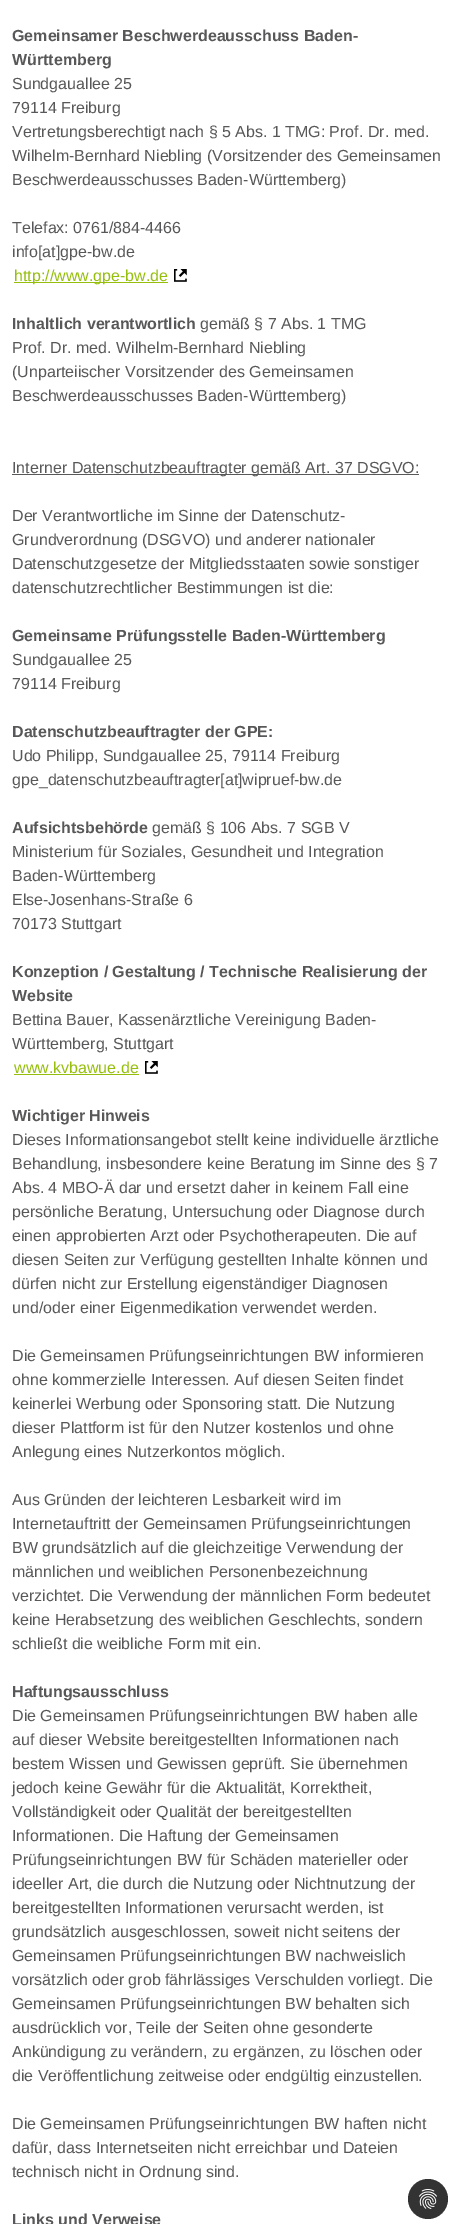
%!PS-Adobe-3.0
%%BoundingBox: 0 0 453 2224
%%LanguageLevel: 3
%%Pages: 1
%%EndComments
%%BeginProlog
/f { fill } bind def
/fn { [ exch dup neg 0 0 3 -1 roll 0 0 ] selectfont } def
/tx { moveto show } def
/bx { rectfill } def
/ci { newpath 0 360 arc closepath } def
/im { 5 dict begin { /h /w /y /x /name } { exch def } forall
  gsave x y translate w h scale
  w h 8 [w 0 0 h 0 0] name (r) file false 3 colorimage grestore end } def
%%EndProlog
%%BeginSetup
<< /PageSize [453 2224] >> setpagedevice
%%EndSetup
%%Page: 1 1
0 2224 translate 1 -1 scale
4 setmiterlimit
1 setgray
0 0 453 2224 bx
/LiberationSans-Bold 16 fn
0.345 0.345 0.353 setrgbcolor
(Gemeinsamer Beschwerdeausschuss Baden-) 12 41 tx
(Württemberg) 12 65 tx
/LiberationSans-Regular 16 fn
(Sundgauallee 25) 12 89 tx
(79114 Freiburg) 12 113 tx
(Vertretungsberechtigt nach § 5 Abs. 1 TMG: Prof. Dr. med.) 12 137 tx
(Wilhelm-Bernhard Niebling \(Vorsitzender des Gemeinsamen) 12 161 tx
(Beschwerdeausschusses Baden-Württemberg\)) 12 185 tx
(Telefax: 0761/884-4466) 12 233 tx
(info[at]gpe-bw.de) 12 257 tx
0.588 0.749 0.051 setrgbcolor
14 282 154 1 bx
(http://www.gpe-bw.de) 14 281 tx
(image0.raw) 174 269 13 13 im
/LiberationSans-Bold 16 fn
0.345 0.345 0.353 setrgbcolor
(Inhaltlich verantwortlich) 12 329 tx
/LiberationSans-Regular 16 fn
(gemäß § 7 Abs. 1 TMG) 200 329 tx
(Prof. Dr. med. Wilhelm-Bernhard Niebling) 12 353 tx
(\(Unparteiischer Vorsitzender des Gemeinsamen) 12 377 tx
(Beschwerdeausschusses Baden-Württemberg\)) 12 401 tx
12 474 407 1 bx
(Interner Datenschutzbeauftragter gemäß Art. 37 DSGVO:) 12 473 tx
(Der Verantwortliche im Sinne der Datenschutz-) 12 521 tx
(Grundverordnung \(DSGVO\) und anderer nationaler) 12 545 tx
(Datenschutzgesetze der Mitgliedsstaaten sowie sonstiger) 12 569 tx
(datenschutzrechtlicher Bestimmungen ist die:) 12 593 tx
/LiberationSans-Bold 16 fn
(Gemeinsame Prüfungsstelle Baden-Württemberg) 12 641 tx
/LiberationSans-Regular 16 fn
(Sundgauallee 25) 12 665 tx
(79114 Freiburg) 12 689 tx
/LiberationSans-Bold 16 fn
(Datenschutzbeauftragter der GPE:) 12 737 tx
/LiberationSans-Regular 16 fn
(Udo Philipp, Sundgauallee 25, 79114 Freiburg) 12 761 tx
(gpe_datenschutzbeauftragter[at]wipruef-bw.de) 12 785 tx
/LiberationSans-Bold 16 fn
(Aufsichtsbehörde) 12 833 tx
/LiberationSans-Regular 16 fn
(gemäß § 106 Abs. 7 SGB V) 152 833 tx
(Ministerium für Soziales, Gesundheit und Integration) 12 857 tx
(Baden-Württemberg) 12 881 tx
(Else-Josenhans-Straße 6) 12 905 tx
(70173 Stuttgart) 12 929 tx
/LiberationSans-Bold 16 fn
(Konzeption / Gestaltung / Technische Realisierung der) 12 977 tx
(Website) 12 1001 tx
/LiberationSans-Regular 16 fn
(Bettina Bauer, Kassenärztliche Vereinigung Baden-) 12 1025 tx
(Württemberg, Stuttgart) 12 1049 tx
0.588 0.749 0.051 setrgbcolor
(www.kvbawue.de) 14 1073 tx
14 1074 125 1 bx
(image0.raw) 145 1061 13 13 im
/LiberationSans-Bold 16 fn
0.345 0.345 0.353 setrgbcolor
(Wichtiger Hinweis) 12 1121 tx
/LiberationSans-Regular 16 fn
(Dieses Informationsangebot stellt keine individuelle ärztliche) 12 1145 tx
(Behandlung, insbesondere keine Beratung im Sinne des § 7) 12 1169 tx
(Abs. 4 MBO-Ä dar und ersetzt daher in keinem Fall eine) 12 1193 tx
(persönliche Beratung, Untersuchung oder Diagnose durch) 12 1217 tx
(einen approbierten Arzt oder Psychotherapeuten. Die auf) 12 1241 tx
(diesen Seiten zur Verfügung gestellten Inhalte können und) 12 1265 tx
(dürfen nicht zur Erstellung eigenständiger Diagnosen) 12 1289 tx
(und/oder einer Eigenmedikation verwendet werden.) 12 1313 tx
(Die Gemeinsamen Prüfungseinrichtungen BW informieren) 12 1361 tx
(ohne kommerzielle Interessen. Auf diesen Seiten findet) 12 1385 tx
(keinerlei Werbung oder Sponsoring statt. Die Nutzung) 12 1409 tx
(dieser Plattform ist für den Nutzer kostenlos und ohne) 12 1433 tx
(Anlegung eines Nutzerkontos möglich.) 12 1457 tx
(Aus Gründen der leichteren Lesbarkeit wird im) 12 1505 tx
(Internetauftritt der Gemeinsamen Prüfungseinrichtungen) 12 1529 tx
(BW grundsätzlich auf die gleichzeitige Verwendung der) 12 1553 tx
(männlichen und weiblichen Personenbezeichnung) 12 1577 tx
(verzichtet. Die Verwendung der männlichen Form bedeutet) 12 1601 tx
(keine Herabsetzung des weiblichen Geschlechts, sondern) 12 1625 tx
(schließt die weibliche Form mit ein.) 12 1649 tx
/LiberationSans-Bold 16 fn
(Haftungsausschluss) 12 1697 tx
/LiberationSans-Regular 16 fn
(Die Gemeinsamen Prüfungseinrichtungen BW haben alle) 12 1721 tx
(auf dieser Website bereitgestellten Informationen nach) 12 1745 tx
(bestem Wissen und Gewissen geprüft. Sie übernehmen) 12 1769 tx
(jedoch keine Gewähr für die Aktualität, Korrektheit,) 12 1793 tx
(Vollständigkeit oder Qualität der bereitgestellten) 12 1817 tx
(Informationen. Die Haftung der Gemeinsamen) 12 1841 tx
(Prüfungseinrichtungen BW für Schäden materieller oder) 12 1865 tx
(ideeller Art, die durch die Nutzung oder Nichtnutzung der) 12 1889 tx
(bereitgestellten Informationen verursacht werden, ist) 12 1913 tx
(grundsätzlich ausgeschlossen, soweit nicht seitens der) 12 1937 tx
(Gemeinsamen Prüfungseinrichtungen BW nachweislich) 12 1961 tx
(vorsätzlich oder grob fährlässiges Verschulden vorliegt. Die) 12 1985 tx
(Gemeinsamen Prüfungseinrichtungen BW behalten sich) 12 2009 tx
(ausdrücklich vor, Teile der Seiten ohne gesonderte) 12 2033 tx
(Ankündigung zu verändern, zu ergänzen, zu löschen oder) 12 2057 tx
(die Veröffentlichung zeitweise oder endgültig einzustellen.) 12 2081 tx
(Die Gemeinsamen Prüfungseinrichtungen BW haften nicht) 12 2129 tx
(dafür, dass Internetseiten nicht erreichbar und Dateien) 12 2153 tx
(technisch nicht in Ordnung sind.) 12 2177 tx
/LiberationSans-Bold 16 fn
(Links und Verweise) 12 2225 tx
0.2 setgray
428 2199 20 ci f
(image1.raw) 419 2189 18 20 im
showpage
%%EOF
